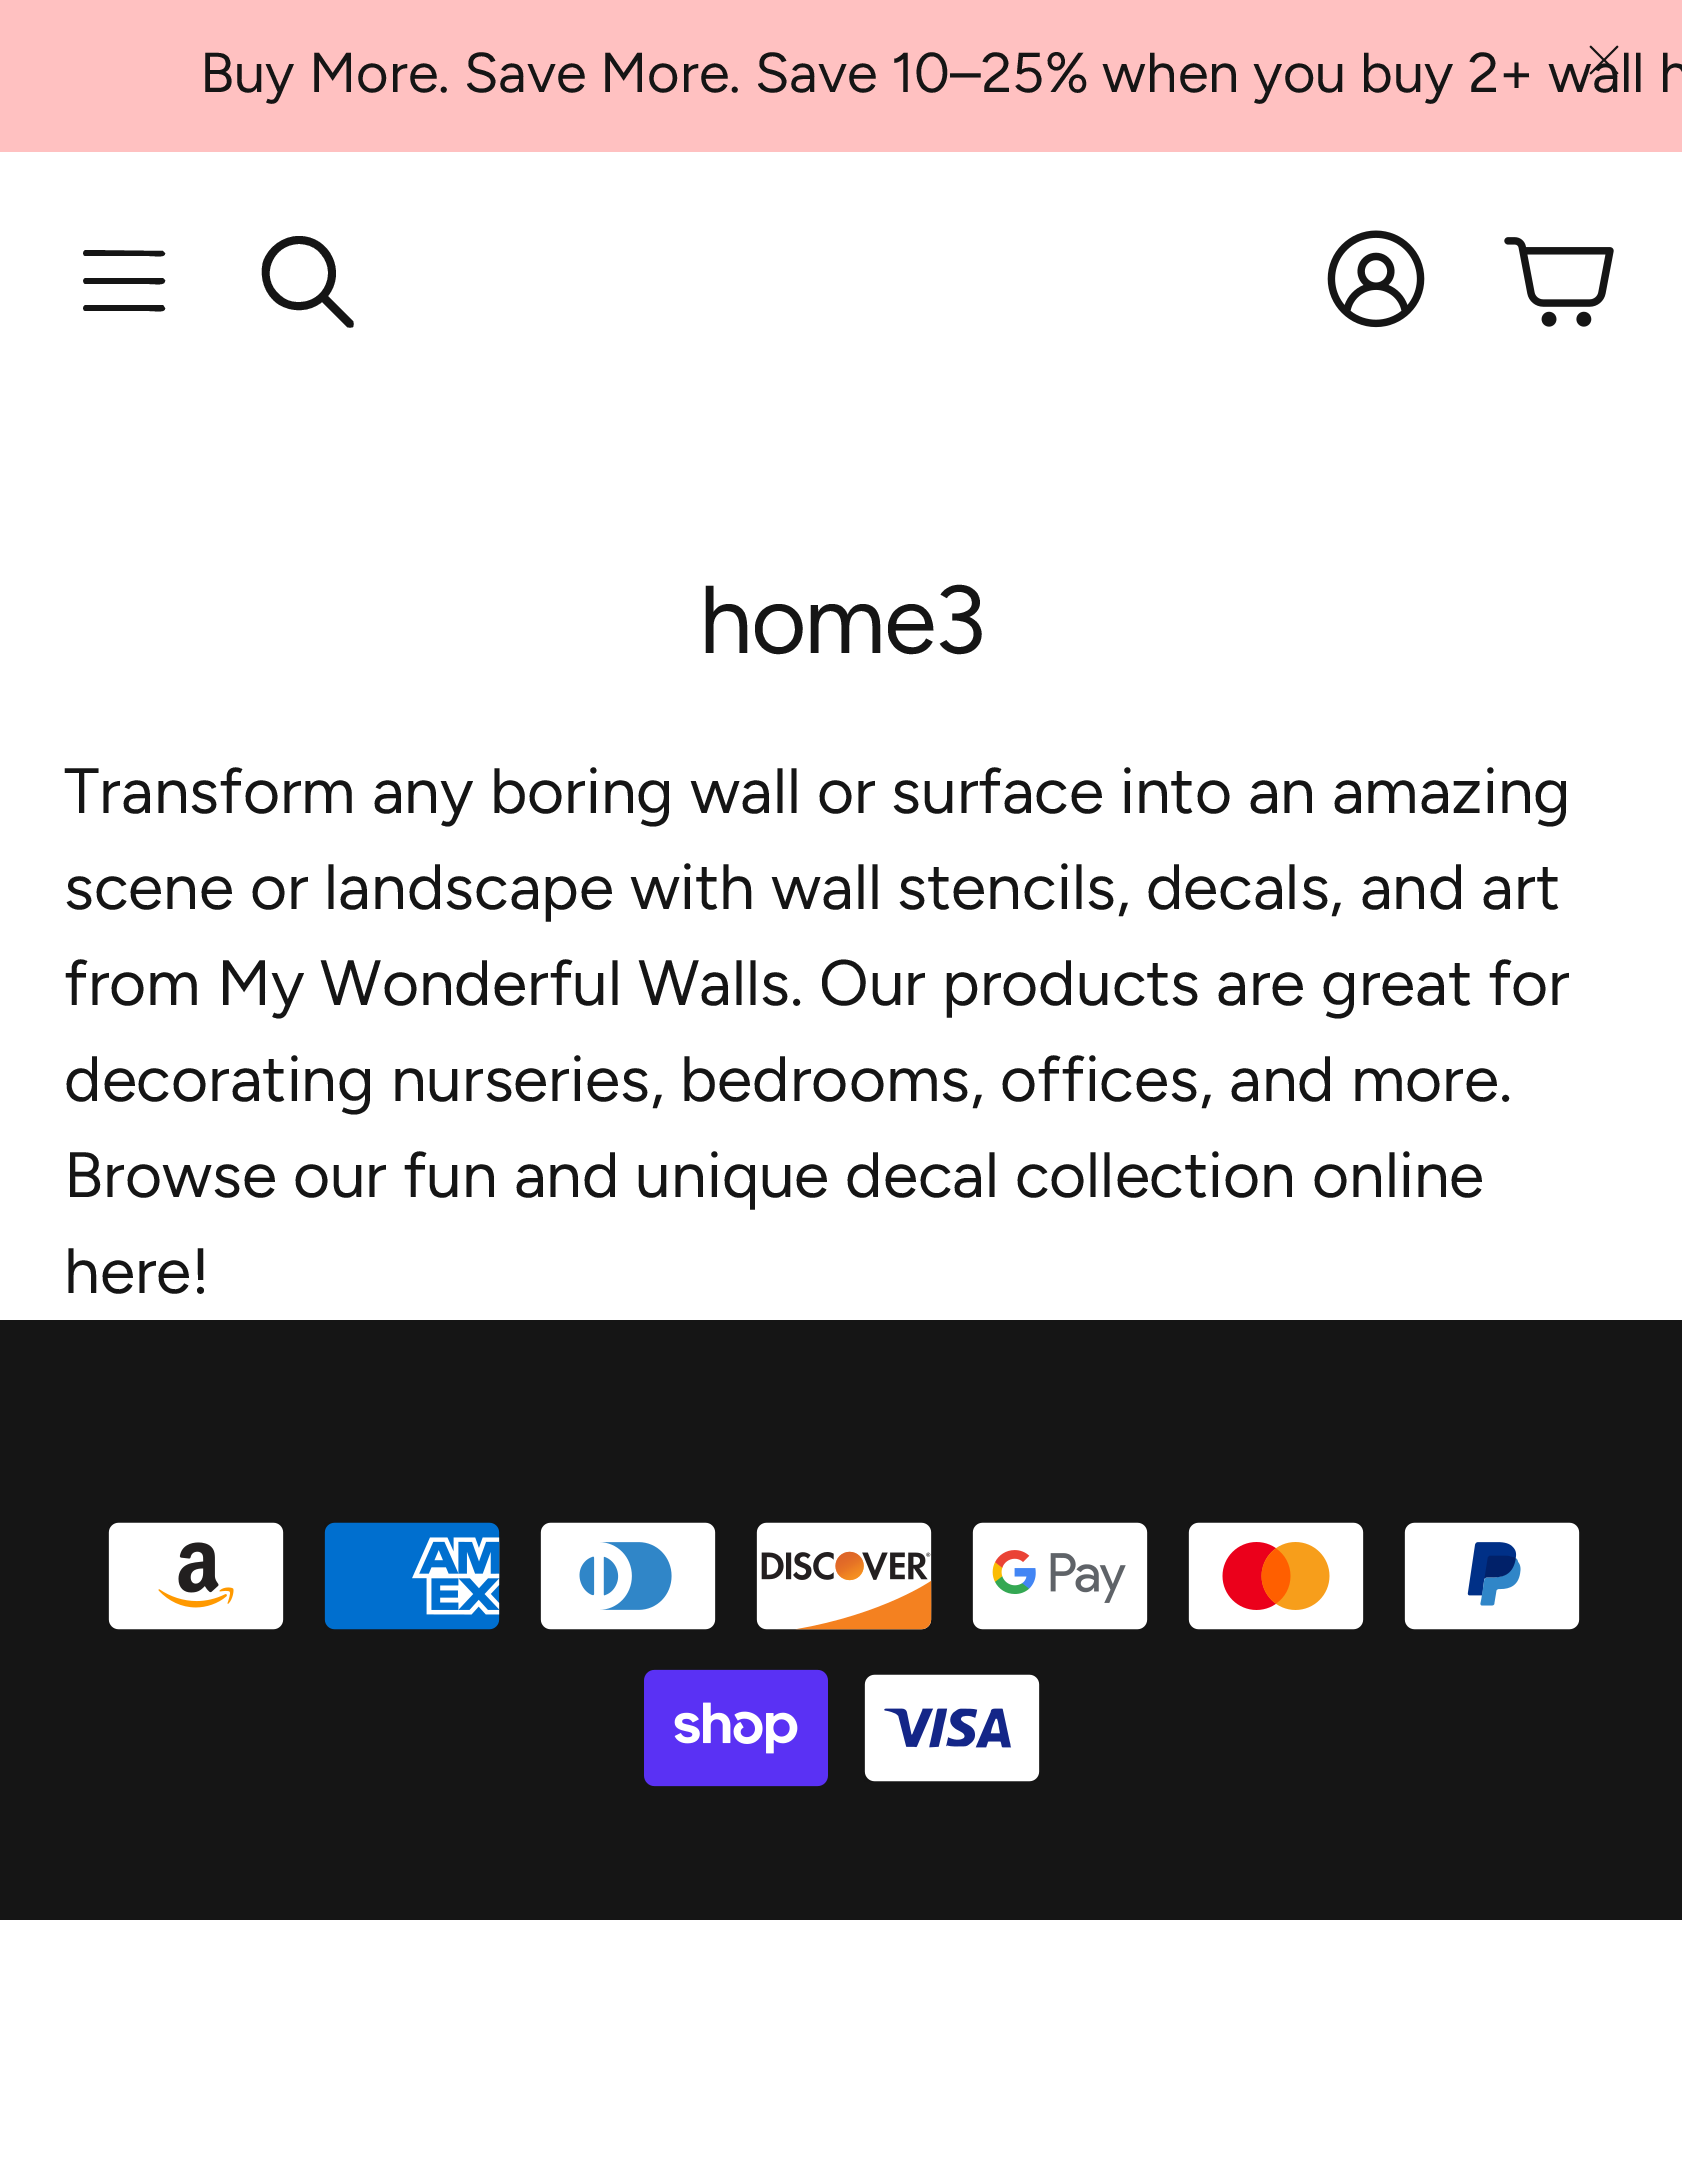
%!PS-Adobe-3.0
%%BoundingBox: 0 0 1682 2180
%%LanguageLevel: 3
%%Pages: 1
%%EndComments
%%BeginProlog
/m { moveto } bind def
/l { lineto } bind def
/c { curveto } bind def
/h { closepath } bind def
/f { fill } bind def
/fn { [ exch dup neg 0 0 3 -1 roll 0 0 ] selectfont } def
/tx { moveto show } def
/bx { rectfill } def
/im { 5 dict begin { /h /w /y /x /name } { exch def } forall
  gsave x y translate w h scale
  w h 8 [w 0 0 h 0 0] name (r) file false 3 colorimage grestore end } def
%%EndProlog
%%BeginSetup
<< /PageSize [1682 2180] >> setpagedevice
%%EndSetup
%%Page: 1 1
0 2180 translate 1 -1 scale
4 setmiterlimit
1 setgray
0 0 1682 2180 bx
1 0.757 0.757 setrgbcolor
0 0 1682 152 bx
/Figtree-Regular 56 fn
0.082 setgray
(Buy More. Save More. Save 10–25% when you buy 2+ wall h) 200 92 tx
(image0.raw) 1589 45 30 30 im
86 250 m 83 250 82 255 85 256 c 149 256 l 156 256 166 258 165 253 c 163 251 l h 86 278 m 83 278 82 282 85 284 c 149 284 l 156 284 166 286 165 280 c 163 278 l h 86 305 m 83 305 82 310 85 311 c 149 311 l 156 311 166 313 165 308 c 163 305 l h f
299 236 m 283 236 268 247 263 262 c 259 278 265 295 278 304 c 292 313 310 312 322 302 c 347 327 l 349 328 351 328 353 327 c 354 325 354 323 353 321 c 328 296 l 347 272 330 236 299 236 c h 299 244 m 306 244 313 246 318 251 c 339 270 325 304 297 302 c 291 302 285 300 280 295 c 259 278 272 244 299 244 c h f
(image1.raw) 1327 230 98 98 im
(image2.raw) 1504 237 110 90 im
/Figtree-Regular 96 fn
699 653 m -2 0 (home3) ashow
/Figtree-Regular 64 fn
(Transform any boring wall or surface into an amazing) 64 813 tx
(scene or landscape with wall stencils, decals, and art) 64 909 tx
(from My Wonderful Walls. Our products are great for) 64 1005 tx
(decorating nurseries, bedrooms, offices, and more.) 64 1101 tx
(Browse our fun and unique decal collection online) 64 1197 tx
(here!) 64 1293 tx
0 1320 1682 600 bx
(image3.raw) 108 1522 176 108 im
(image4.raw) 324 1522 176 108 im
(image5.raw) 540 1522 176 108 im
(image6.raw) 756 1522 176 108 im
(image7.raw) 972 1522 176 108 im
(image8.raw) 1188 1522 176 108 im
(image9.raw) 1404 1522 176 108 im
(image10.raw) 644 1669 184 118 im
(image11.raw) 864 1674 176 108 im
showpage
%%EOF
